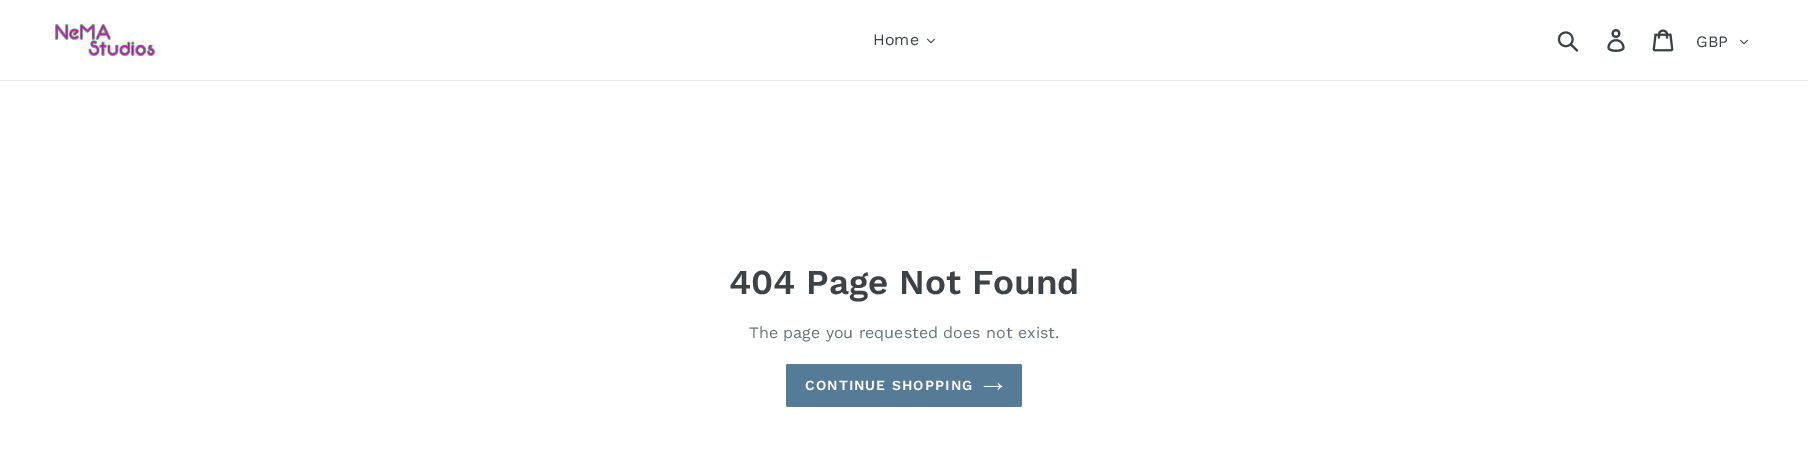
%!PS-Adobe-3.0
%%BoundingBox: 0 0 1808 464
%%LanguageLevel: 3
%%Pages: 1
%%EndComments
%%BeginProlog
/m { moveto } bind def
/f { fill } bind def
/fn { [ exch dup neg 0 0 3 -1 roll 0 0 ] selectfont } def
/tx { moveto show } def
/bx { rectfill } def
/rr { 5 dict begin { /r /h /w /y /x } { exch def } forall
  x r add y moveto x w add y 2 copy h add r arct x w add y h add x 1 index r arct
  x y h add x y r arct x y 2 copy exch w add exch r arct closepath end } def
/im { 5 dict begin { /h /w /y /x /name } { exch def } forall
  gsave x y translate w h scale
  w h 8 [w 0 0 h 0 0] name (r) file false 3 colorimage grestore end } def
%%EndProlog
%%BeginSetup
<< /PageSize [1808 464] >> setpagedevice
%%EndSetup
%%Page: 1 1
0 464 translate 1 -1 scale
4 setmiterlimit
1 setgray
0 0 1808 464 bx
0.91 0.914 0.922 setrgbcolor
0 80 1808 1 bx
(image0.raw) 55 24 100 32 im
/WorkSans-Regular 16 fn
0.239 0.259 0.275 setrgbcolor
(Home) 873 45 tx
(image1.raw) 927 38 8 6 im
(image2.raw) 1557 31 22 21 im
(image3.raw) 1607 29 18 23 im
(image4.raw) 1652 29 22 23 im
(GBP) 1696 47 tx
(image1.raw) 1740 39 8 6 im
/WorkSans-SemiBold 35 fn
(404 Page Not Found) 729 294 tx
/WorkSans-Regular 16 fn
0.412 0.447 0.482 setrgbcolor
(The page you requested does not exist.) 749 338 tx
0.333 0.482 0.592 setrgbcolor
786 364 236 43 2 rr f
/WorkSans-SemiBold 14 fn
1 setgray
805 390 m 1.1 0 (CONTINUE SHOPPING) ashow
(image5.raw) 983 382 20 8 im
showpage
%%EOF
